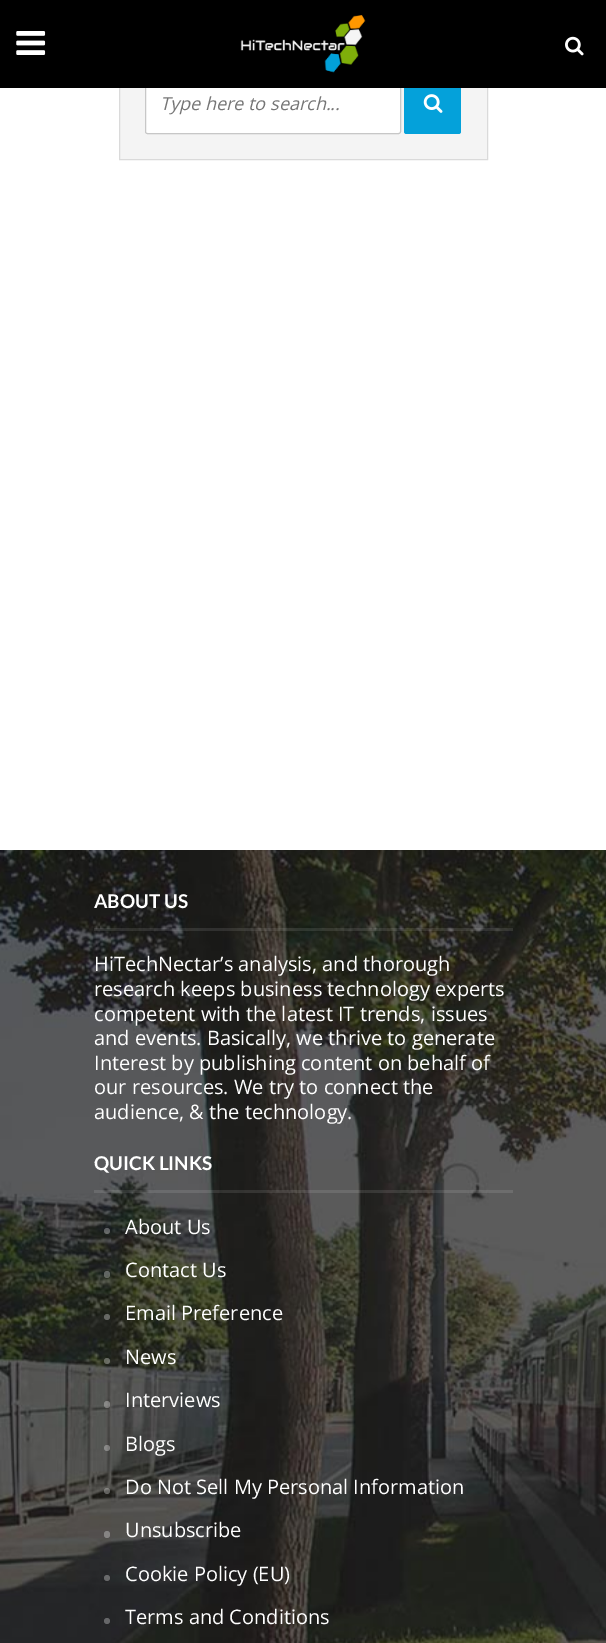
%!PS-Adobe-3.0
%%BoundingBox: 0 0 606 1643
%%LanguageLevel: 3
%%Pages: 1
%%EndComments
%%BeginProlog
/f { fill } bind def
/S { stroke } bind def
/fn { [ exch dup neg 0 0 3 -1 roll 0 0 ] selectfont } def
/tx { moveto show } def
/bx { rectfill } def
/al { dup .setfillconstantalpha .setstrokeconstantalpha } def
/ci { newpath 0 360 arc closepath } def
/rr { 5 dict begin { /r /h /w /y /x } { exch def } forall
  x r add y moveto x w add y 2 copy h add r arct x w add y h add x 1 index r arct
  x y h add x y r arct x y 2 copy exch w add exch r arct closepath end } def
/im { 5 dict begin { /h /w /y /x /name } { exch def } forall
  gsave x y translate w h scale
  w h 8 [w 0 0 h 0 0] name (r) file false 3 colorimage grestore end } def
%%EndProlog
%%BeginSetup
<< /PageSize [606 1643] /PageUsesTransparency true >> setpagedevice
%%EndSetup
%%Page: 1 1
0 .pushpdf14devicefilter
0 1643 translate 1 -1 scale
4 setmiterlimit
1 setgray
0 0 606 1643 bx
0.957 setgray
120 88 367 71 bx
0.855 setgray
119.5 45.5 368 114 rectstroke
1 setgray
145 71 256 63 2.5 rr f
0.3 al
0.267 setgray
145.5 71.5 255 62 2 rr S
1 al
0.016 0.631 0.855 setrgbcolor
404 71 57 63 2.5 rr f
0 setgray
0 0 606 88 bx
(image0.raw) 16 31 30 24 im
(image1.raw) 240 15 126 58 im
(image2.raw) 565 36 19 20 im
/OpenSans-Italic 18 fn
0.459 setgray
(Type here to search...) 160 110 tx
(image3.raw) 423 94 20 19 im
(image4.raw) 0 850 606 793 im
/Lato-Bold 19 fn
1 setgray
(ABOUT US) 94 908 tx
0.1 al
94 928 419 3 bx
/OpenSans-Regular 20 fn
1 al
(HiTechNectar’s analysis, and thorough) 94 971 tx
(research keeps business technology experts) 94 996 tx
(competent with the latest IT trends, issues) 94 1021 tx
(and events. Basically, we thrive to generate) 94 1045 tx
(Interest by publishing content on behalf of) 94 1070 tx
(our resources. We try to connect the) 94 1094 tx
(audience, & the technology.) 94 1119 tx
/Lato-Bold 19 fn
(QUICK LINKS) 94 1170 tx
0.1 al
94 1190 419 3 bx
0.3 al
107 1231 3 ci f
/OpenSans-Regular 20 fn
1 al
(About Us) 125 1234 tx
0.3 al
104 1271 6 7 3 rr f
1 al
(Contact Us) 125 1277 tx
0.3 al
107 1317 3 ci f
1 al
(Email Preference) 125 1320 tx
0.3 al
107 1361 3 ci f
1 al
(News) 125 1364 tx
0.3 al
104 1401 6 7 3 rr f
1 al
(Interviews) 125 1407 tx
0.3 al
107 1448 3 ci f
1 al
(Blogs) 125 1451 tx
0.3 al
107 1491 3 ci f
1 al
(Do Not Sell My Personal Information) 125 1494 tx
0.525 0.518 0.514 setrgbcolor
104 1531 6 7 3 rr f
1 setgray
(Unsubscribe) 125 1537 tx
0.3 al
107 1578 3 ci f
1 al
(Cookie Policy \(EU\)) 125 1581 tx
0.4 0.404 0.412 setrgbcolor
107 1621 3 ci f
1 setgray
(Terms and Conditions) 125 1624 tx
.poppdf14devicefilter showpage
%%EOF
